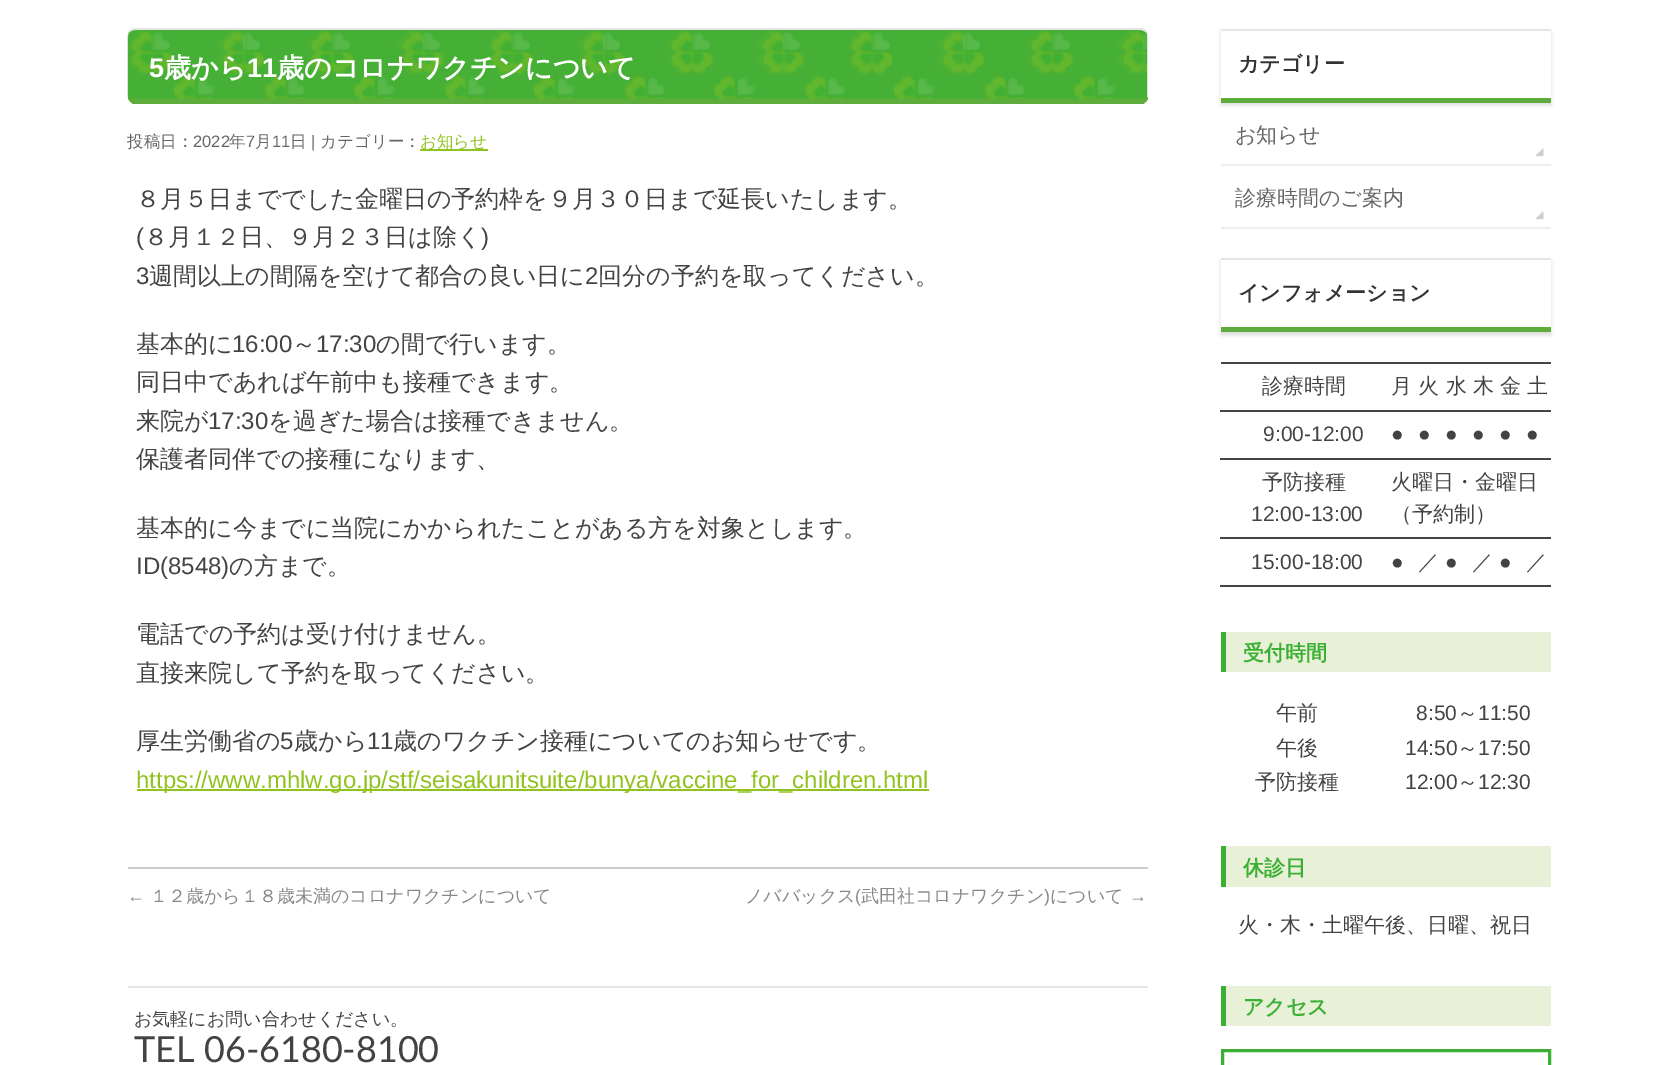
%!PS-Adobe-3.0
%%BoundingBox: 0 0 1678 1065
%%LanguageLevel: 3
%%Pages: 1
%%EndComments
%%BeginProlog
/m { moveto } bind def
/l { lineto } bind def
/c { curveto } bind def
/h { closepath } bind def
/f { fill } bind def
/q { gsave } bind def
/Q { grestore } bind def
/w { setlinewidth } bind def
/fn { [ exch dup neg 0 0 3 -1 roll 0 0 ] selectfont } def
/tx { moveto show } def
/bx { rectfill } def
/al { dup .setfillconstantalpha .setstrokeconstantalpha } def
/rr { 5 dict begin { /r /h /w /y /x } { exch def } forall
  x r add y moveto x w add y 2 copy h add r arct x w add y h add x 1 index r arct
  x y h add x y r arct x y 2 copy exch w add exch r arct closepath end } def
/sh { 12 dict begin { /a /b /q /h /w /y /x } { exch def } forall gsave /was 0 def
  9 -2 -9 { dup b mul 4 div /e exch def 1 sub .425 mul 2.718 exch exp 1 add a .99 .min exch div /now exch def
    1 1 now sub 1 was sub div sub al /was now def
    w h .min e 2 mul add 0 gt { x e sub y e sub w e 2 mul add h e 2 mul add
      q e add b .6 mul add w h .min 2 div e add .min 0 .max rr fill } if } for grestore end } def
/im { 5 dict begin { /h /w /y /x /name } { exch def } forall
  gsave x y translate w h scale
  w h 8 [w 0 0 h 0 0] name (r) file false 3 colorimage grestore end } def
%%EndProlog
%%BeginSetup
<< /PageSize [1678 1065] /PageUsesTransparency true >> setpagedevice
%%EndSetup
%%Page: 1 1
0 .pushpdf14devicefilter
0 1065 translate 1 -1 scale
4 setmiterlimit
1 setgray
0 0 1678 1065 bx
(image0.raw) 127 28 1021 76 im
0.898 setgray
135 30 m 131 30 128 33 128 36 c 128 33 130 30 133 28 c 1143 28 l 1145 29 1147 31 1148 33 c 1148 34 l 1146 32 1143 30 1140 30 c h f
0.369 0.678 0.235 setrgbcolor
1148 97 m 1148 99 l 1147 101 1145 103 1143 104 c 133 104 l 130 102 128 99 128 96 c 128 98 131 99 135 99 c 1140 99 l 1143 99 1146 98 1148 97 c h f
/LiberationSans-Bold 27 fn
1 setgray
(5) 149 77 tx
/WenQuanYiZenHei-Bold 27 fn
(歳から) 164 77 tx
/LiberationSans-Bold 27 fn
(11) 247 77 tx
/WenQuanYiZenHei-Bold 27 fn
(歳のコロナワクチンについて) 277 77 tx
/WenQuanYiZenHei-Medium 16.5 fn
0.4 setgray
(投稿日：) 127 147 tx
/LiberationSans-Regular 16.5 fn
(2022) 193 147 tx
/WenQuanYiZenHei-Medium 16.5 fn
(年) 229 147 tx
/LiberationSans-Regular 16.5 fn
(7) 246 147 tx
/WenQuanYiZenHei-Medium 16.5 fn
(月) 255 147 tx
/LiberationSans-Regular 16.5 fn
(11) 272 147 tx
/WenQuanYiZenHei-Medium 16.5 fn
(日) 290 147 tx
/LiberationSans-Regular 16.5 fn
(|) 311 147 tx
/WenQuanYiZenHei-Medium 16.5 fn
(カテゴリー：) 320 147 tx
0.565 0.765 0.122 setrgbcolor
420 149 68 2 bx
(お知らせ) 420 147 tx
/WenQuanYiZenHei-Medium 24 fn
0.263 setgray
(８月５日まででした金曜日の予約枠を９月３０日まで延長いたします。) 136 207 tx
/LiberationSans-Regular 24 fn
(\() 136 245 tx
/WenQuanYiZenHei-Medium 24 fn
(８月１２日、９月２３日は除く) 144 245 tx
/LiberationSans-Regular 24 fn
(\)) 481 245 tx
(3) 136 284 tx
/WenQuanYiZenHei-Medium 24 fn
(週間以上の間隔を空けて都合の良い日に) 149 284 tx
/LiberationSans-Regular 24 fn
(2) 585 284 tx
/WenQuanYiZenHei-Medium 24 fn
(回分の予約を取ってください。) 598 284 tx
(基本的に) 136 352 tx
/LiberationSans-Regular 24 fn
(16:00) 232 352 tx
/WenQuanYiZenHei-Medium 24 fn
(～) 292 352 tx
/LiberationSans-Regular 24 fn
(17:30) 316 352 tx
/WenQuanYiZenHei-Medium 24 fn
(の間で行います。) 376 352 tx
(同日中であれば午前中も接種できます。) 136 390 tx
(来院が) 136 429 tx
/LiberationSans-Regular 24 fn
(17:30) 208 429 tx
/WenQuanYiZenHei-Medium 24 fn
(を過ぎた場合は接種できません。) 268 429 tx
(保護者同伴での接種になります、) 136 467 tx
(基本的に今までに当院にかかられたことがある方を対象とします。) 136 536 tx
/LiberationSans-Regular 24 fn
(ID\(8548\)) 136 574 tx
/WenQuanYiZenHei-Medium 24 fn
(の方まで。) 229 574 tx
(電話での予約は受け付けません。) 136 642 tx
(直接来院して予約を取ってください。) 136 681 tx
(厚生労働省の) 136 749 tx
/LiberationSans-Regular 24 fn
(5) 280 749 tx
/WenQuanYiZenHei-Medium 24 fn
(歳から) 294 749 tx
/LiberationSans-Regular 24 fn
(11) 367 749 tx
/WenQuanYiZenHei-Medium 24 fn
(歳のワクチン接種についてのお知らせです。) 393 749 tx
0.565 0.765 0.122 setrgbcolor
137 789 792 2 bx
/LiberationSans-Regular 24 fn
(https://www.mhlw.go.jp/stf/seisakunitsuite/bunya/vaccine_for_children.html) 136 788 tx
0.8 setgray
128 867 1020 2 bx
/LiberationSans-Regular 18 fn
0.533 setgray
(←) 127 902 tx
/WenQuanYiZenHei-Medium 18 fn
(１２歳から１８歳未満のコロナワクチンについて) 150 902 tx
(ノババックス) 745 902 tx
/LiberationSans-Regular 18 fn
(\() 855 902 tx
/WenQuanYiZenHei-Medium 18 fn
(武田社コロナワクチン) 861 902 tx
/LiberationSans-Regular 18 fn
(\)) 1044 902 tx
/WenQuanYiZenHei-Medium 18 fn
(について) 1050 902 tx
/LiberationSans-Regular 18 fn
(→) 1129 902 tx
0.902 setgray
128 986 1020 2 bx
/WenQuanYiZenHei-Medium 18 fn
0.263 setgray
(お気軽にお問い合わせください。) 134 1025 tx
/Lato-Regular 36 fn
(TEL 06-6180-8100) 134 1062 tx
q
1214 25 m 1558 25 l 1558 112 l 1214 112 l h 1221 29 m 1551 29 l 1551 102 l 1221 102 l h eoclip newpath
0 setgray
1221 32 330 73 0 2 0.15 sh
Q
0.898 setgray
1221 29 330 2 bx
0.369 0.678 0.235 setrgbcolor
1221 98 330 5 bx
/WenQuanYiZenHei-Bold 21 fn
0.2 setgray
(カテゴリー) 1238 71 tx
0.933 setgray
1221 164 330 2 bx
(image1.raw) 1536 148 8 9 im
/WenQuanYiZenHei-Medium 21 fn
0.4 setgray
(お知らせ) 1235 142 tx
0.933 setgray
1221 227 330 2 bx
(image1.raw) 1536 211 8 9 im
0.4 setgray
(診療時間のご案内) 1235 205 tx
q
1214 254 m 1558 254 l 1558 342 l 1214 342 l h 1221 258 m 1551 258 l 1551 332 l 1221 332 l h eoclip newpath
0 setgray
1221 261 330 74 0 2 0.15 sh
Q
0.898 setgray
1221 258 330 2 bx
0.369 0.678 0.235 setrgbcolor
1221 327 330 5 bx
/WenQuanYiZenHei-Bold 21 fn
0.2 setgray
(インフォメーション) 1238 300 tx
0.267 setgray
1221 362 330 2 bx
/WenQuanYiZenHei-Medium 21 fn
0.263 setgray
(診療時間) 1262 393 tx
(月 火 水 木 金 土) 1391 393 tx
0.267 setgray
1220 410 331 2 bx
/LiberationSans-Regular 21 fn
0.263 setgray
(9:00-12:00) 1263 441 tx
(●) 1391 441 tx
(●) 1418 441 tx
(●) 1445 441 tx
(●) 1472 441 tx
(●) 1499 441 tx
0.267 setgray
1220 458 331 2 bx
0.263 setgray
(●) 1526 441 tx
/WenQuanYiZenHei-Medium 21 fn
(予防接種) 1262 489 tx
/LiberationSans-Regular 21 fn
(12:00-13:00) 1251 521 tx
0.267 setgray
1220 537 331 2 bx
/WenQuanYiZenHei-Medium 21 fn
0.263 setgray
(火曜日・金曜日) 1391 489 tx
(（予約制）) 1391 521 tx
/LiberationSans-Regular 21 fn
(15:00-18:00) 1251 569 tx
(●) 1391 569 tx
/WenQuanYiZenHei-Medium 21 fn
(／) 1418 569 tx
/LiberationSans-Regular 21 fn
(●) 1445 569 tx
/WenQuanYiZenHei-Medium 21 fn
(／) 1472 569 tx
/LiberationSans-Regular 21 fn
(●) 1499 569 tx
0.267 setgray
1220 585 331 2 bx
/WenQuanYiZenHei-Medium 21 fn
0.263 setgray
(／) 1526 569 tx
0.91 0.941 0.843 setrgbcolor
1226 632 325 40 bx
0.235 0.69 0.204 setrgbcolor
1221 632 5 40 bx
/WenQuanYiZenHei-Bold 21 fn
(受付時間) 1243 660 tx
/WenQuanYiZenHei-Medium 21 fn
0.263 setgray
(午前) 1276 720 tx
/LiberationSans-Regular 21 fn
(8:50) 1416 720 tx
/WenQuanYiZenHei-Medium 21 fn
(～) 1457 720 tx
/LiberationSans-Regular 21 fn
(11:50) 1478 720 tx
/WenQuanYiZenHei-Medium 21 fn
(午後) 1276 755 tx
/LiberationSans-Regular 21 fn
(14:50) 1405 755 tx
/WenQuanYiZenHei-Medium 21 fn
(～) 1457 755 tx
/LiberationSans-Regular 21 fn
(17:50) 1478 755 tx
/WenQuanYiZenHei-Medium 21 fn
(予防接種) 1255 789 tx
/LiberationSans-Regular 21 fn
(12:00) 1405 789 tx
/WenQuanYiZenHei-Medium 21 fn
(～) 1457 789 tx
/LiberationSans-Regular 21 fn
(12:30) 1478 789 tx
0.91 0.941 0.843 setrgbcolor
1226 846 325 41 bx
0.235 0.69 0.204 setrgbcolor
1221 846 5 41 bx
/WenQuanYiZenHei-Bold 21 fn
(休診日) 1243 875 tx
/WenQuanYiZenHei-Medium 21 fn
0.263 setgray
(火・木・土曜午後、日曜、祝日) 1238 932 tx
0.91 0.941 0.843 setrgbcolor
1226 986 325 40 bx
0.235 0.69 0.204 setrgbcolor
1221 986 5 40 bx
/WenQuanYiZenHei-Bold 21 fn
(アクセス) 1243 1014 tx
3 w
1222.5 1050.5 327 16 rectstroke
.poppdf14devicefilter showpage
%%EOF
